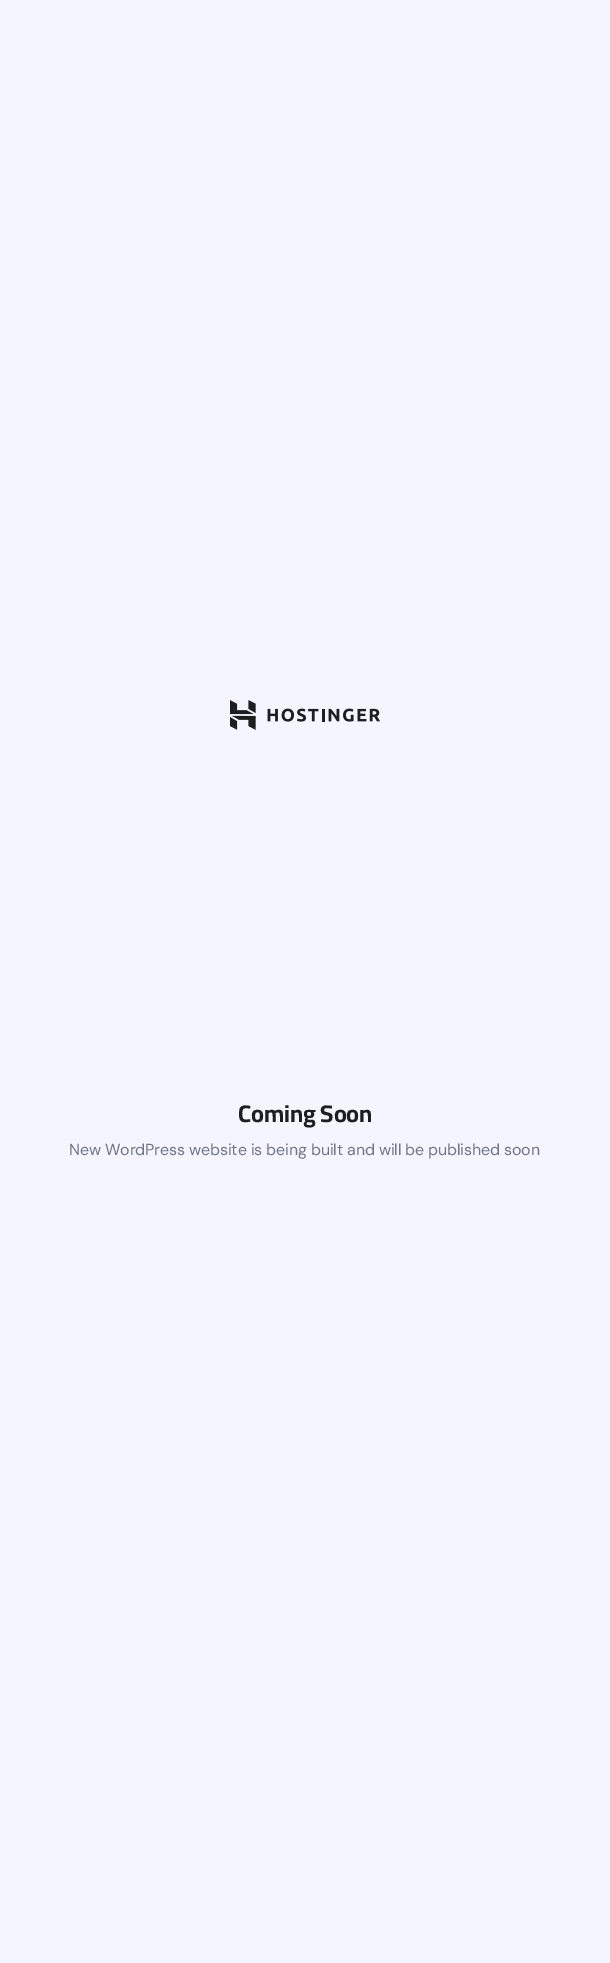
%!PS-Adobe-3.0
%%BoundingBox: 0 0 610 1963
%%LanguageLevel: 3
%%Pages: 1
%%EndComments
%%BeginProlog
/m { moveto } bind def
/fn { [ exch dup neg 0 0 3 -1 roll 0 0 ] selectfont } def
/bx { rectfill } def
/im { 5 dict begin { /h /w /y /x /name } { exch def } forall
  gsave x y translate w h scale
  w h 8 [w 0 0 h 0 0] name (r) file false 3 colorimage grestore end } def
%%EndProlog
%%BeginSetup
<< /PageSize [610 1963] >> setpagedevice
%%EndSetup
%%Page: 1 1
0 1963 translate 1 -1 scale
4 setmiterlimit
0.957 0.961 1 setrgbcolor
0 0 610 1963 bx
(image0.raw) 230 700 150 30 im
/Cairo-Bold 24 fn
0.114 0.118 0.125 setrgbcolor
238 1122 m -0.15 0 (Coming Soon) ashow
/DMSans-Regular 16 fn
0.447 0.459 0.525 setrgbcolor
69 1155 m -0.15 0 (New WordPress website is being built and will be published soon) ashow
showpage
%%EOF
